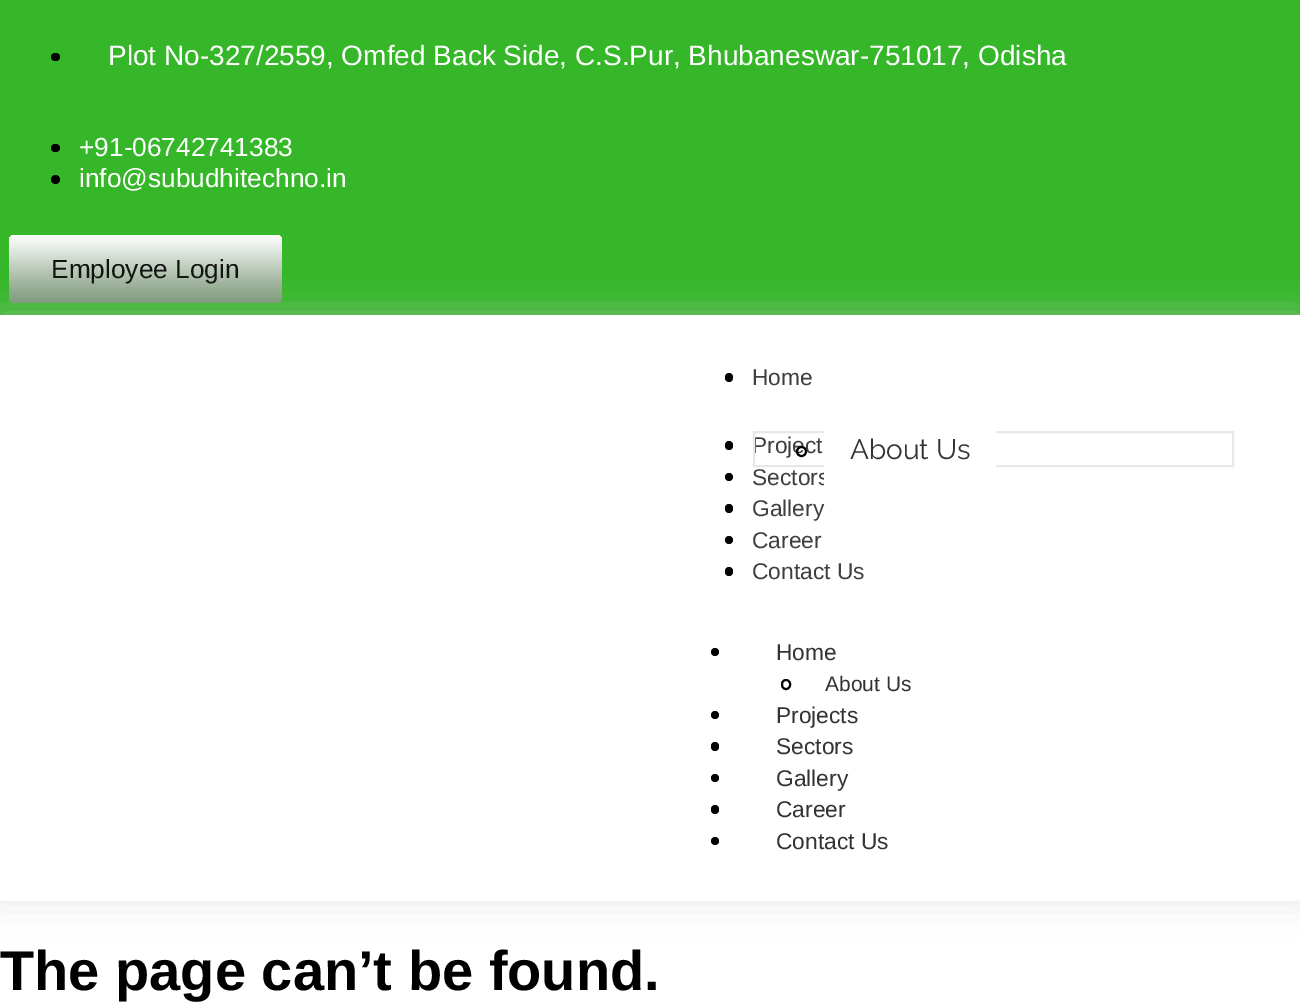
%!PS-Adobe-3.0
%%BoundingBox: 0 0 1300 1007
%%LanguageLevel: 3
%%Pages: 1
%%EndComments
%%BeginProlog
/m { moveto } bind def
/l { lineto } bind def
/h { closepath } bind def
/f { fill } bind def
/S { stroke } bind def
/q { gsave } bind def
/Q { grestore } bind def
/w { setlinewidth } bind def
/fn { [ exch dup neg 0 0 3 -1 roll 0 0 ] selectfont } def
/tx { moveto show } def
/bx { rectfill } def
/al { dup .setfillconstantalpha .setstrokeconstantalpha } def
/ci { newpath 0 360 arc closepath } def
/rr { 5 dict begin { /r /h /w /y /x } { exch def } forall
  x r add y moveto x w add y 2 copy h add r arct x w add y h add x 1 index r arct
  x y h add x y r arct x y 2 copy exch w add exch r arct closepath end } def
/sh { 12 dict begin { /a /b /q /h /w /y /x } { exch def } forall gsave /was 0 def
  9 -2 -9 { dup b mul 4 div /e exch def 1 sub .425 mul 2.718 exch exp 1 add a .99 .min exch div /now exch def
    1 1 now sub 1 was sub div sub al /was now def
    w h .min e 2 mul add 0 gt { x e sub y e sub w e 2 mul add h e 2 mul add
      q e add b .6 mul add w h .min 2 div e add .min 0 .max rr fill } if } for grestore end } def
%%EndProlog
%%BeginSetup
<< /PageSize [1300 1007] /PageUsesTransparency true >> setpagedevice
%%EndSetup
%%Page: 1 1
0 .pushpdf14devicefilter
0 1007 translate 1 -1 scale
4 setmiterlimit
1 setgray
0 0 1300 1007 bx
0.208 0.718 0.161 setrgbcolor
0 0 1300 315 bx
0 setgray
51 53 9 8 4 rr f
/LiberationSans-Regular 28 fn
1 setgray
(Plot No-327/2559, Omfed Back Side, C.S.Pur, Bhubaneswar-751017, Odisha) 108 65 tx
0 setgray
51 144 9 8 4 rr f
/LiberationSans-Regular 26.25 fn
1 setgray
(+91-06742741383) 79 156 tx
0 setgray
55.5 179.5 4.5 ci f
1 setgray
(info@subudhitechno.in) 79 187 tx
q 9 235 273 68 5 rr clip newpath
<< /ShadingType 2 /ColorSpace /DeviceRGB /Coords [145 235 145 303] /Extend [true true] /Function << /FunctionType 2 /Domain [0 1] /C0 [1 1 1] /C1 [0.467 0.588 0.455] /N 1 >> >> shfill Q
0.071 setgray
(Employee Login) 51 278 tx
q
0 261 m 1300 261 l 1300 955 l 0 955 l h 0 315 m 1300 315 l 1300 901 l 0 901 l h eoclip newpath
0.796 setgray
0 315 1300 586 0 17.5 0.5 sh
Q
0 setgray
725 373 8 9 4 rr f
/LiberationSans-Regular 22.75 fn
0.247 setgray
(Home) 752 385 tx
(Project) 752 453 tx
0.91 setgray
2 w
754 432 479 34 rectstroke
0 setgray
801.5 451.5 4.5 ci S
0.247 setgray
(Sectors) 752 485 tx
1 setgray
824 431 172 55 bx
/Raleway-Regular 28 fn
0.2 setgray
(About Us) 850 459 tx
0 setgray
725 441 8 9 4 rr f
729 477 4 ci f
725 504 8 9 4 rr f
/LiberationSans-Regular 22.75 fn
0.247 setgray
(Gallery) 752 516 tx
0 setgray
729 540 4 ci f
0.247 setgray
(Career) 752 548 tx
0 setgray
725 567 8 9 4 rr f
0.247 setgray
(Contact Us) 752 579 tx
0 setgray
715 652 4 ci f
0.2 setgray
(Home) 776 660 tx
0 setgray
782 680 8 9 4 rr S
/LiberationSans-Regular 21 fn
0.2 setgray
(About Us) 825 691 tx
0 setgray
715 715 4 ci f
/LiberationSans-Regular 22.75 fn
0.2 setgray
(Projects) 776 723 tx
0 setgray
711 742 8 9 4 rr f
0.2 setgray
(Sectors) 776 754 tx
0 setgray
715 778 4 ci f
0.2 setgray
(Gallery) 776 786 tx
0 setgray
711 805 8 9 4 rr f
0.2 setgray
(Career) 776 817 tx
0 setgray
715 841 4 ci f
0.2 setgray
(Contact Us) 776 849 tx
/LiberationSans-Bold 56 fn
0 setgray
(The page can’t be found.) 0 990 tx
.poppdf14devicefilter showpage
%%EOF
